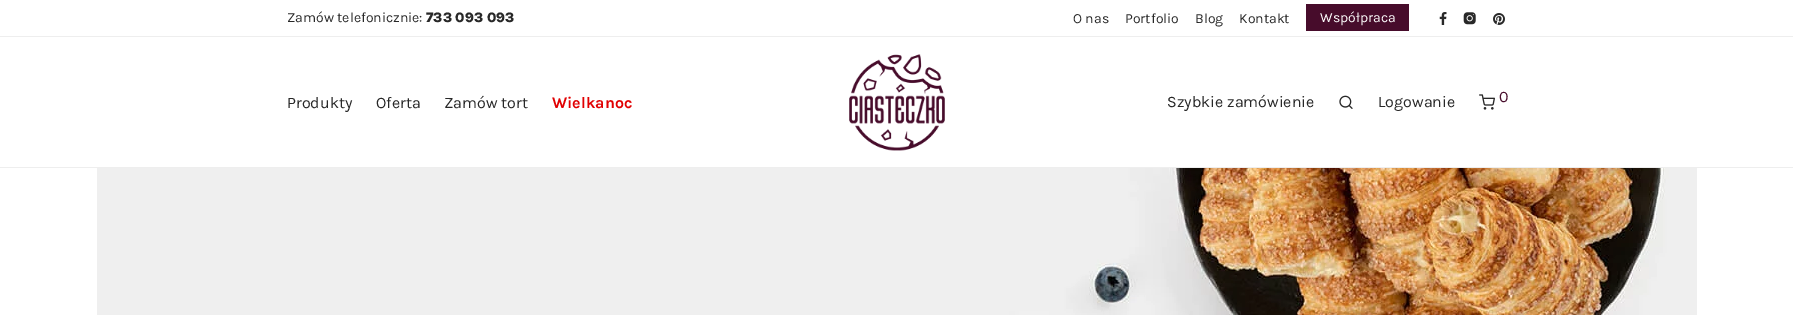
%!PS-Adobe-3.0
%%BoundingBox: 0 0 1793 315
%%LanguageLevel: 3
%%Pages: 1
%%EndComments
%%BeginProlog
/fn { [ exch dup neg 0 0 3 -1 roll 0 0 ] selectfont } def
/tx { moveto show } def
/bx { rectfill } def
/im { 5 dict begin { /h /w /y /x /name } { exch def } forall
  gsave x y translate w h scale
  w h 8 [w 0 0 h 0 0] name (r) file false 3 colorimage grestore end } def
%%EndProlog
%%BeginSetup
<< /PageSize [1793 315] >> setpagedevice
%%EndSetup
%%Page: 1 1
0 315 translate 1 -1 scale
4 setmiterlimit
1 setgray
0 0 1793 315 bx
0.933 setgray
0 36 1793 1 bx
/Karla-Regular 14 fn
0.157 setgray
(Zamów telefonicznie:) 287 22 tx
/Karla-ExtraBold 14 fn
(733 093 093) 426 22 tx
/Karla-Regular 14 fn
(O nas) 1073 23 tx
(Portfolio) 1125 23 tx
(Blog) 1195 23 tx
(Kontakt) 1239 23 tx
0.278 0.047 0.169 setrgbcolor
1306 4 103 27 bx
1 setgray
(Współpraca) 1320 22 tx
(image0.raw) 1439 12 8 13 im
(image1.raw) 1463 12 13 13 im
(image2.raw) 1493 13 12 12 im
0.933 setgray
0 167 1793 1 bx
/Karla-Regular 16 fn
0.157 setgray
(Produkty) 287 108 tx
(Oferta) 376 108 tx
(Zamów tort) 444 108 tx
/Karla-Bold 16 fn
0.882 0 0.004 setrgbcolor
(Wielkanoc) 552 108 tx
(image3.raw) 849 54 96 97 im
/Karla-Regular 16 fn
0.157 setgray
(Szybkie zamówienie) 1167 107 tx
(image4.raw) 1339 95 14 14 im
(Logowanie) 1378 107 tx
(image5.raw) 1479 94 16 16 im
0.278 0.047 0.169 setrgbcolor
(0) 1499 102 tx
(image6.raw) 97 168 1600 147 im
showpage
%%EOF
